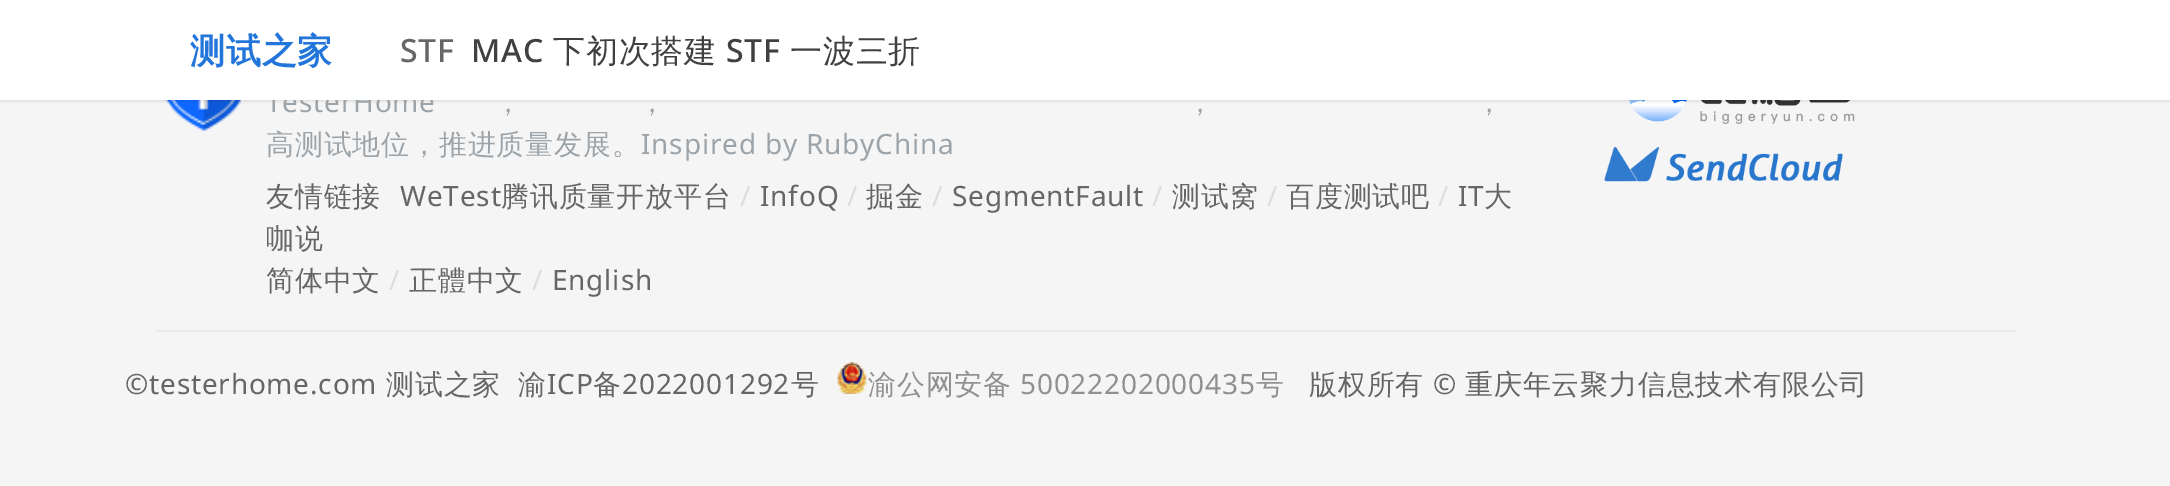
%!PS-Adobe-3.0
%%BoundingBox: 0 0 2170 486
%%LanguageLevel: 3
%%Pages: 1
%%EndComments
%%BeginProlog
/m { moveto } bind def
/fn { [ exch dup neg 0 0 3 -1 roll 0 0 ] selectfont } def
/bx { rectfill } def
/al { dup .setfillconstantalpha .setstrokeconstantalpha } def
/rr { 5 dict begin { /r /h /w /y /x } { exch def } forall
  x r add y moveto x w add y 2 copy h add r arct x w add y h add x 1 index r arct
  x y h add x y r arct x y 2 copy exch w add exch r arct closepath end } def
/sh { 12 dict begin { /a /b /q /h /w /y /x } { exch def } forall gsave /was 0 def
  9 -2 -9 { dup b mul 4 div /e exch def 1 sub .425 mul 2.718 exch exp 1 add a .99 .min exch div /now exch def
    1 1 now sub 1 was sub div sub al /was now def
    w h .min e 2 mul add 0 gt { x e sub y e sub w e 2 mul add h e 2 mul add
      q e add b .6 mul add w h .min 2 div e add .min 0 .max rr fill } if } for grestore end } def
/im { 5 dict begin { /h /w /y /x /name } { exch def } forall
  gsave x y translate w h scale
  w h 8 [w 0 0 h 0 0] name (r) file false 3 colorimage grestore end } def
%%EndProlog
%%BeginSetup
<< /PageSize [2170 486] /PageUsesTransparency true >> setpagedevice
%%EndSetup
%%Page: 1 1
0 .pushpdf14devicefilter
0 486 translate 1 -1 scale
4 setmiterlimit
0.961 setgray
0 0 2170 486 bx
(image0.raw) 165 100 77 31 im
(image1.raw) 1629 100 226 24 im
0 setgray
0 2 2170 100 0 1 0.07 sh
/NotoSans-Regular 28 fn
0.612 0.643 0.663 setrgbcolor
266 112 m 0.8 0 (TesterHome) ashow
1 setgray
0 0 2170 100 bx
/WenQuanYiZenHei-Bold 35 fn
0.133 0.459 0.855 setrgbcolor
190 63 m 0.8 0 (测试之家) ashow
/NotoSans-Medium 32 fn
0.4 setgray
400 62 m 0.8 0 (STF) ashow
0.251 setgray
471 62 m 0.8 0 (MAC) ashow
/WenQuanYiZenHei-Medium 32 fn
553 62 m 0.8 0 (下初次搭建) ashow
/NotoSans-Medium 32 fn
726 62 m 0.8 0 (STF) ashow
/WenQuanYiZenHei-Medium 32 fn
790 62 m 0.8 0 (一波三折) ashow
/WenQuanYiZenHei-Medium 28 fn
0.612 0.643 0.663 setrgbcolor
494 112 m 0.8 0 (，) ashow
638 112 m 0.8 0 (，) ashow
1186 112 m 0.8 0 (，) ashow
1475 112 m 0.8 0 (，) ashow
266 154 m 0.8 0 (高测试地位，推进质量发展。) ashow
/NotoSans-Regular 28 fn
641 154 m 0.8 0 (Inspired by RubyChina) ashow
/WenQuanYiZenHei-Medium 28 fn
0.4 setgray
266 206 m 0.8 0 (友情链接) ashow
/NotoSans-Regular 28 fn
400 206 m 0.8 0 (WeTest) ashow
/WenQuanYiZenHei-Medium 28 fn
501 206 m 0.8 0 (腾讯质量开放平台) ashow
/NotoSans-Regular 28 fn
0.867 setgray
740 206 m 0.8 0 (/) ashow
0.4 setgray
760 206 m 0.8 0 (InfoQ) ashow
0.867 setgray
847 206 m 0.8 0 (/) ashow
/WenQuanYiZenHei-Medium 28 fn
0.4 setgray
866 206 m 0.8 0 (掘金) ashow
/NotoSans-Regular 28 fn
0.867 setgray
932 206 m 0.8 0 (/) ashow
0.4 setgray
952 206 m 0.8 0 (SegmentFault) ashow
0.867 setgray
1152 206 m 0.8 0 (/) ashow
/WenQuanYiZenHei-Medium 28 fn
0.4 setgray
1172 206 m 0.8 0 (测试窝) ashow
/NotoSans-Regular 28 fn
0.867 setgray
1267 206 m 0.8 0 (/) ashow
/WenQuanYiZenHei-Medium 28 fn
0.4 setgray
1286 206 m 0.8 0 (百度测试吧) ashow
/NotoSans-Regular 28 fn
0.867 setgray
1438 206 m 0.8 0 (/) ashow
0.4 setgray
1458 206 m 0.8 0 (IT) ashow
/WenQuanYiZenHei-Medium 28 fn
1484 206 m 0.8 0 (大) ashow
266 248 m 0.8 0 (咖说) ashow
266 290 m 0.8 0 (简体中文) ashow
/NotoSans-Regular 28 fn
0.867 setgray
389 290 m 0.8 0 (/) ashow
/WenQuanYiZenHei-Medium 28 fn
0.4 setgray
409 290 m 0.8 0 (正體中文) ashow
/NotoSans-Regular 28 fn
0.867 setgray
532 290 m 0.8 0 (/) ashow
0.4 setgray
552 290 m 0.8 0 (English) ashow
(image2.raw) 1604 146 239 36 im
0.914 setgray
156 330 1860 2 bx
0.4 setgray
125 394 m 0.8 0 (©testerhome.com) ashow
/WenQuanYiZenHei-Medium 28 fn
386 394 m 0.8 0 (测试之家) ashow
518 394 m 0.8 0 (渝) ashow
/NotoSans-Regular 28 fn
547 394 m 0.8 0 (ICP) ashow
/WenQuanYiZenHei-Medium 28 fn
593 394 m 0.8 0 (备) ashow
/NotoSans-Regular 28 fn
622 394 m 0.8 0 (2022001292) ashow
/WenQuanYiZenHei-Medium 28 fn
791 394 m 0.8 0 (号) ashow
(image3.raw) 837 362 30 32 im
0.565 setgray
868 394 m 0.8 0 (渝公网安备) ashow
/NotoSans-Regular 28 fn
1020 394 m 0.8 0 (50022202000435) ashow
/WenQuanYiZenHei-Medium 28 fn
1256 394 m 0.8 0 (号) ashow
0.4 setgray
1309 394 m 0.8 0 (版权所有) ashow
/NotoSans-Regular 28 fn
1433 394 m 0.8 0 (©) ashow
/WenQuanYiZenHei-Medium 28 fn
1465 394 m 0.8 0 (重庆年云聚力信息技术有限公司) ashow
.poppdf14devicefilter showpage
%%EOF
